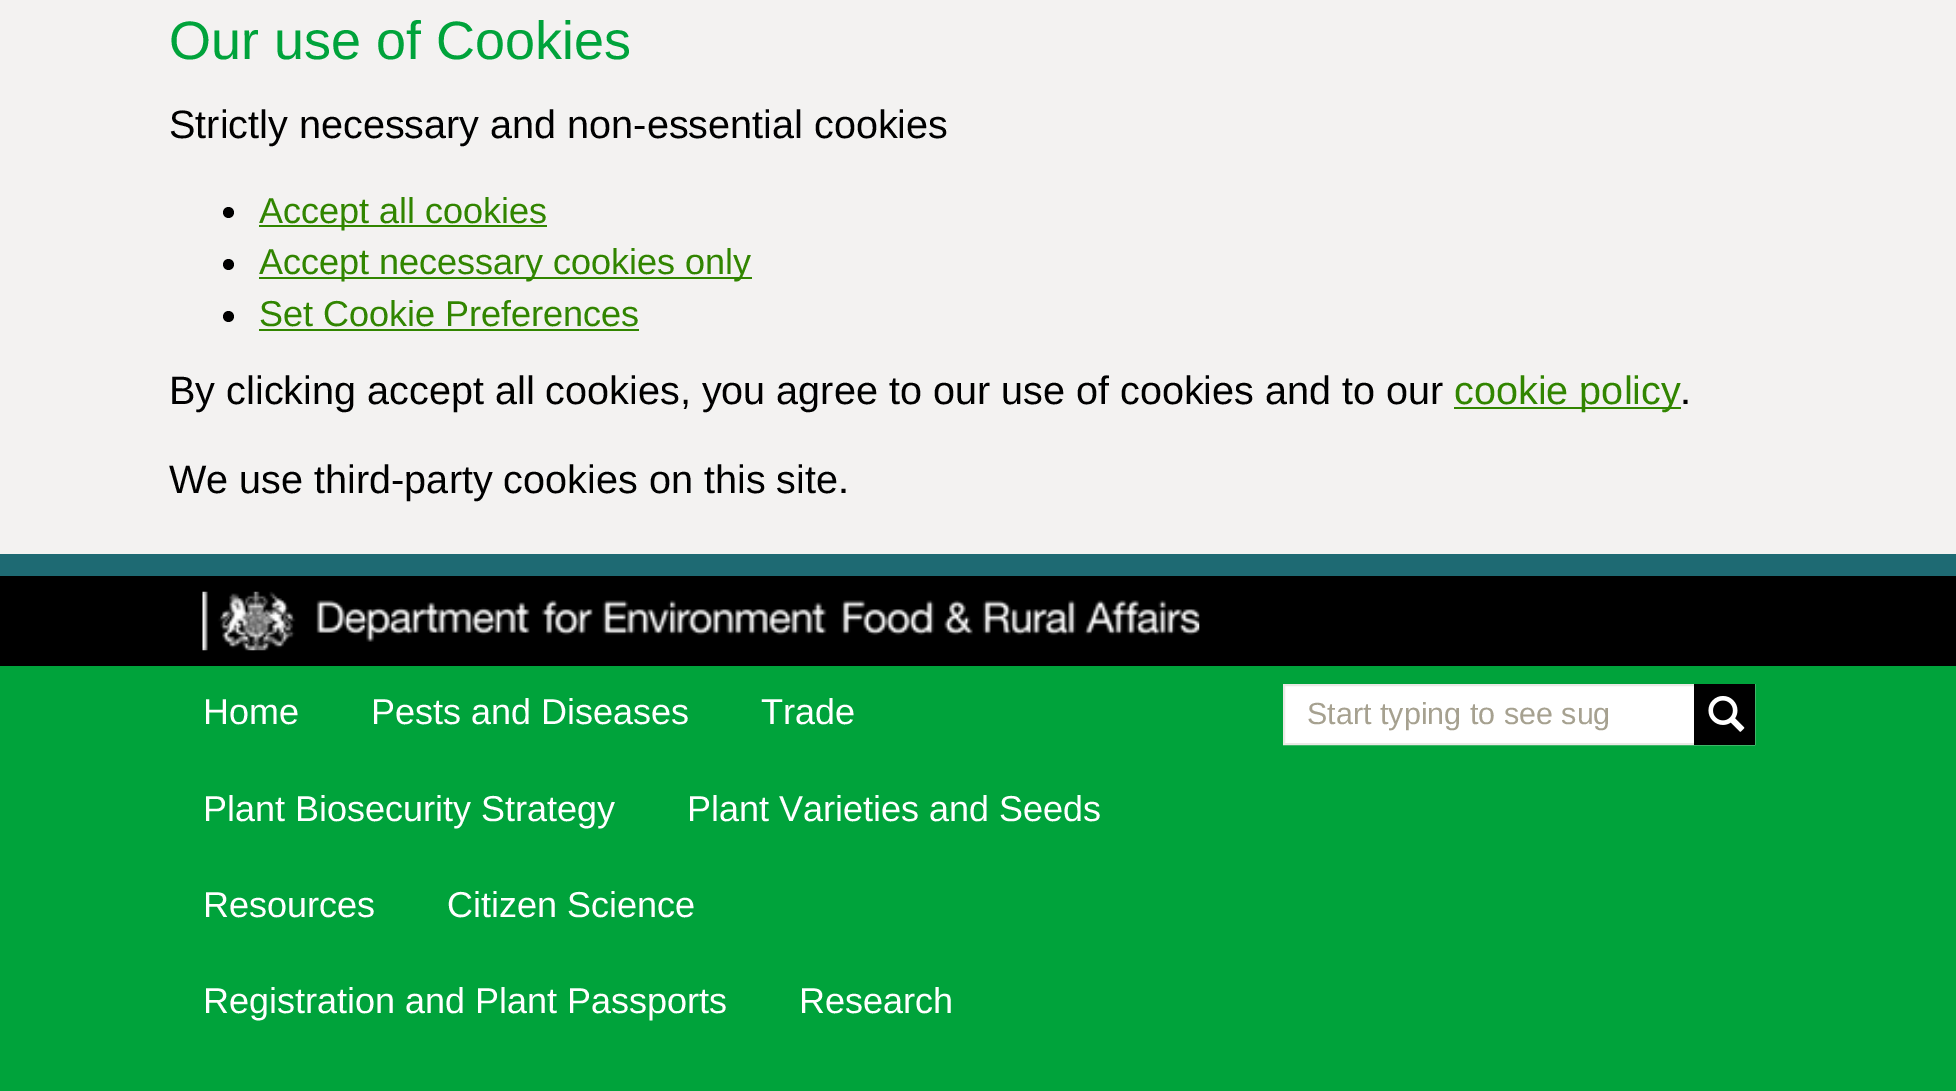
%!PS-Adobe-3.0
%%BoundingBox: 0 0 1956 1091
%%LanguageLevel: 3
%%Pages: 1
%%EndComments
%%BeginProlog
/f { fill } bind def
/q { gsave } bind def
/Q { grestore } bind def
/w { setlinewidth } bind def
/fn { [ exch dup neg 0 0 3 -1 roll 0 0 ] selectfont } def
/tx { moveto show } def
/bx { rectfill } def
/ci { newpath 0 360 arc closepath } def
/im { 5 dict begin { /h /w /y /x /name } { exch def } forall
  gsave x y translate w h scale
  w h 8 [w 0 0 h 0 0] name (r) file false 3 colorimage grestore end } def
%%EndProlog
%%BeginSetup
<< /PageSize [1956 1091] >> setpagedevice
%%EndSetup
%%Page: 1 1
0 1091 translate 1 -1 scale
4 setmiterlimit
0.953 0.949 0.945 setrgbcolor
0 0 1956 1091 bx
0.118 0.416 0.451 setrgbcolor
0 554 1956 22 bx
/LiberationSans-Regular 54 fn
0 0.639 0.231 setrgbcolor
(Our use of Cookies) 169 59 tx
/LiberationSans-Regular 39.6 fn
0 setgray
(Strictly necessary and non-essential cookies) 169 138 tx
228.5 212.5 5.5 ci f
0.192 0.522 0 setrgbcolor
259 225 288 2 bx
/LiberationSans-Regular 36 fn
(Accept all cookies) 259 223 tx
0 setgray
228.5 264.5 5.5 ci f
0.192 0.522 0 setrgbcolor
259 277 493 2 bx
(Accept necessary cookies only) 259 274 tx
0 setgray
228.5 316.5 5.5 ci f
0.192 0.522 0 setrgbcolor
(Set Cookie Preferences) 259 326 tx
259 329 380 2 bx
/LiberationSans-Regular 39.6 fn
0 setgray
(By clicking accept all cookies, you agree to our use of cookies and to our) 169 404 tx
0.192 0.522 0 setrgbcolor
1454 407 227 2 bx
(cookie policy) 1454 404 tx
0 setgray
(.) 1680 404 tx
(We use third-party cookies on this site.) 169 493 tx
0 576 1956 90 bx
(image0.raw) 202 591 998 60 im
0 0.639 0.231 setrgbcolor
0 666 1956 425 bx
/LiberationSans-Regular 36 fn
1 setgray
(Home) 203 724 tx
(Pests and Diseases) 371 724 tx
(Trade) 761 724 tx
(Plant Biosecurity Strategy) 203 821 tx
(Plant Varieties and Seeds) 687 821 tx
(Resources) 203 917 tx
(Citizen Science) 447 917 tx
(Registration and Plant Passports) 203 1013 tx
(Research) 799 1013 tx
1285 686 409 57 bx
0.918 0.914 0.898 setrgbcolor
2 w
1284 685 470 59 rectstroke
q
1307 686 302 57 rectclip
/LiberationSans-Regular 30.5 fn
0.651 0.631 0.565 setrgbcolor
(Start typing to see sug) 1307 724 tx
Q
0 setgray
1694 684 61 61 bx
(image1.raw) 1708 696 37 36 im
showpage
%%EOF
